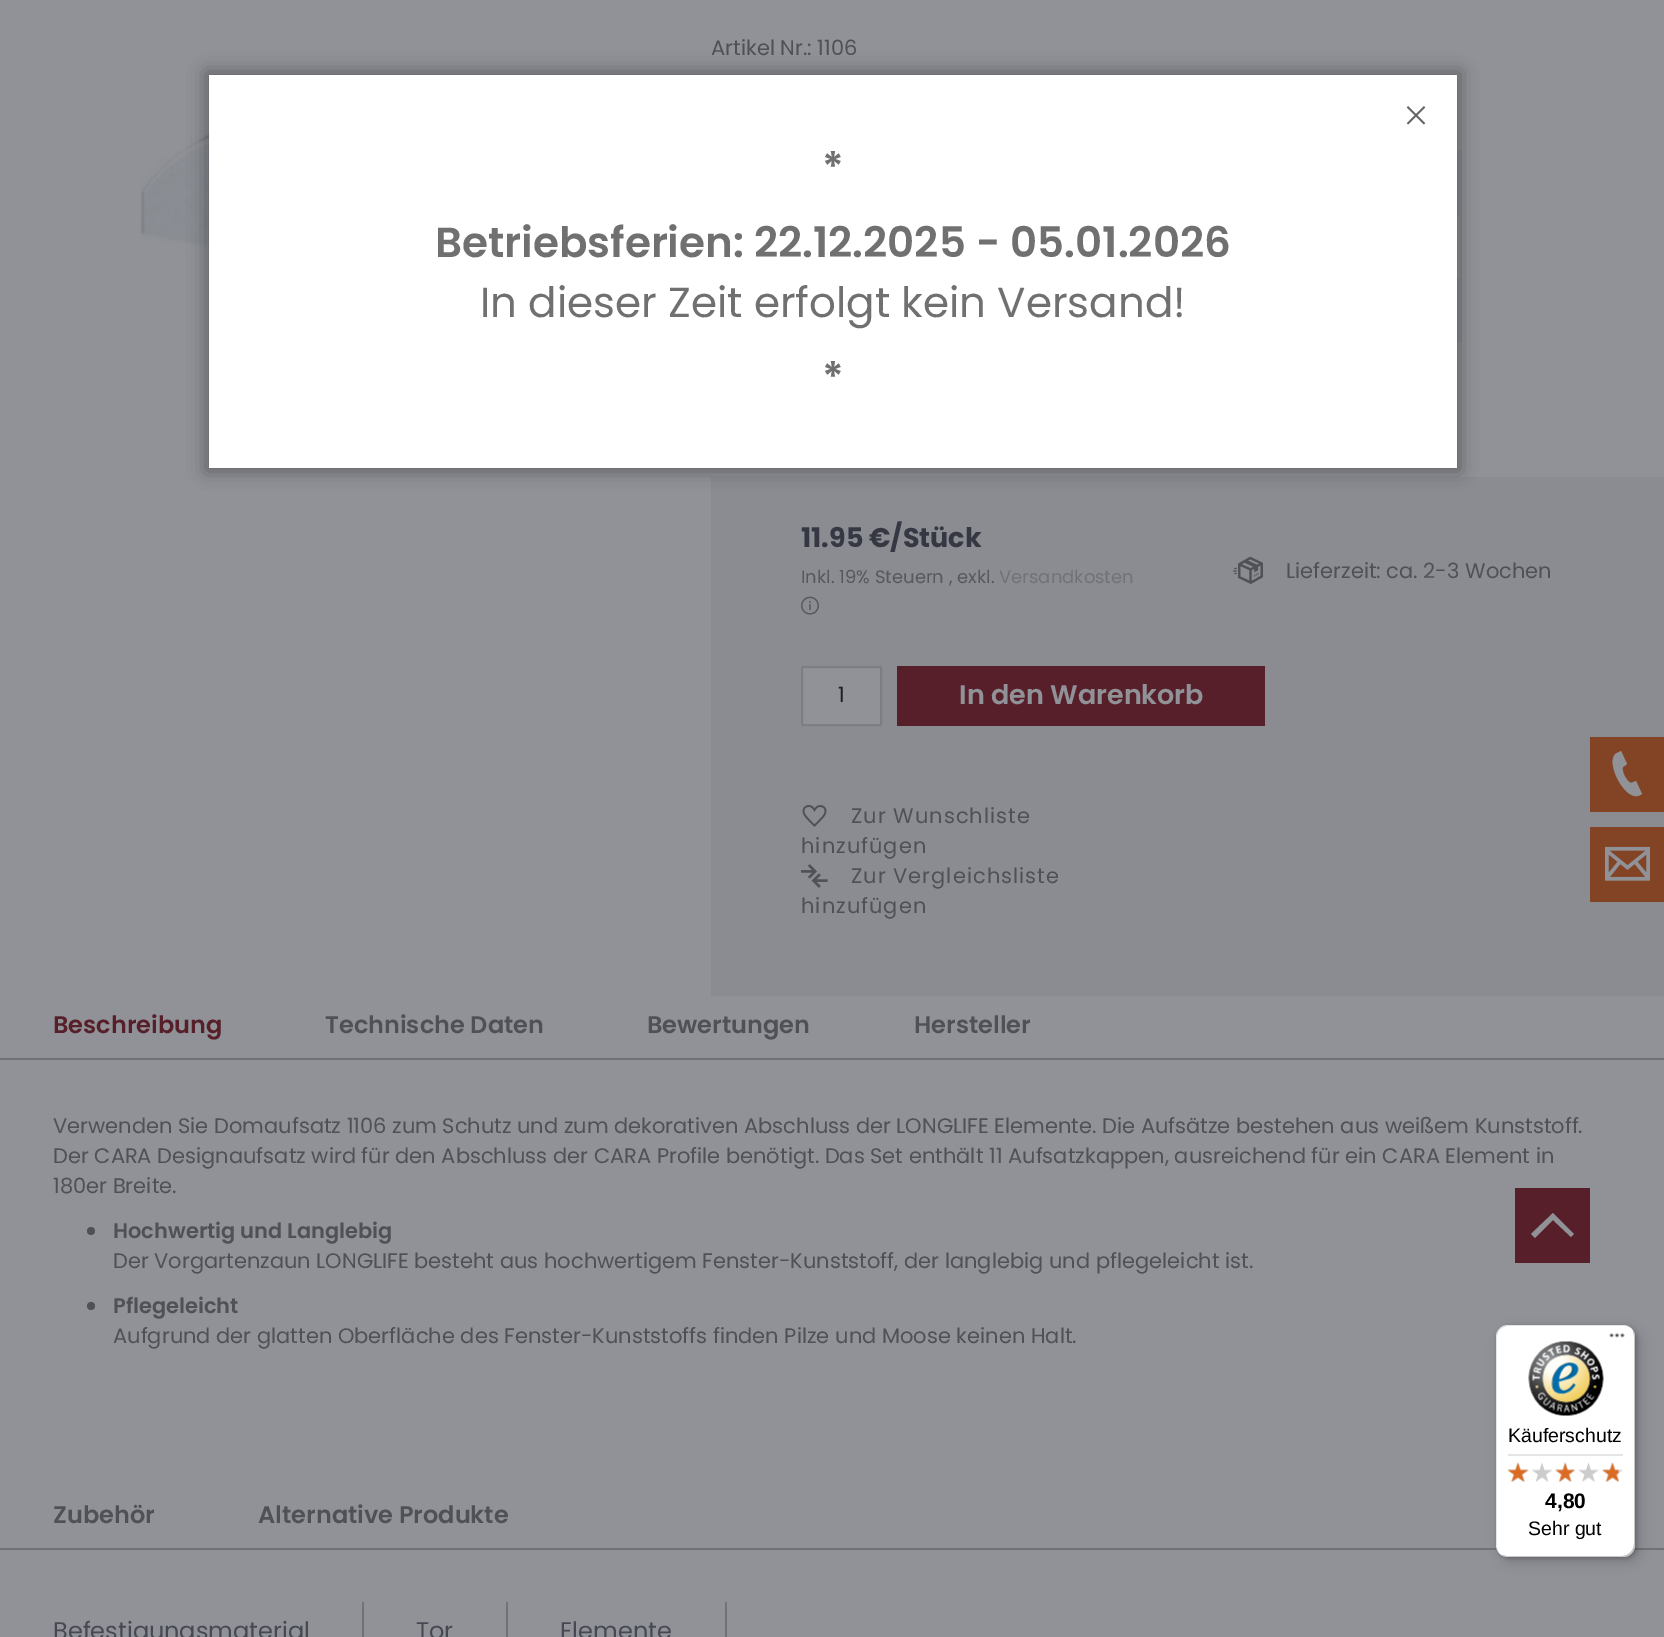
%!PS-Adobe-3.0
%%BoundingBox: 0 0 1664 1637
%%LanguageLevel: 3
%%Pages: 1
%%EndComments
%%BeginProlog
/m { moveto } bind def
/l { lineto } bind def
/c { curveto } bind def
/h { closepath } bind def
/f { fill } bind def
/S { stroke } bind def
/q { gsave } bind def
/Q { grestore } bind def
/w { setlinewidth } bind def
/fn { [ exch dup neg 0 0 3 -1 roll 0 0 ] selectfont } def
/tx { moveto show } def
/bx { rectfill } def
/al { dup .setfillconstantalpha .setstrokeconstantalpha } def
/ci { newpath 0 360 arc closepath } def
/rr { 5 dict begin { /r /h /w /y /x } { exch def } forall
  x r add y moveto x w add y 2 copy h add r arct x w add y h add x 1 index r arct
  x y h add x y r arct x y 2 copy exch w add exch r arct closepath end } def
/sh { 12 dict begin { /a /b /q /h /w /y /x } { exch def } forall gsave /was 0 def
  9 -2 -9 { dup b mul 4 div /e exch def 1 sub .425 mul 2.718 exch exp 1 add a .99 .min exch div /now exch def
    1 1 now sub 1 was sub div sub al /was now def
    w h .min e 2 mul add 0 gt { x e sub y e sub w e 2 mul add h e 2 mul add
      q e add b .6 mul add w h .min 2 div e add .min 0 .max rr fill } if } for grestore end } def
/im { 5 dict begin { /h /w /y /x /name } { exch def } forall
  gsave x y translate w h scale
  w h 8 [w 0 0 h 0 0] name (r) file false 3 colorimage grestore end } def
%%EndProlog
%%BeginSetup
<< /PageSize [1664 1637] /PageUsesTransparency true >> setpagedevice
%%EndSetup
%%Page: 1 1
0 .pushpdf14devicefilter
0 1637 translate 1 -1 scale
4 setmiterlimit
0.565 0.573 0.596 setrgbcolor
0 0 1664 1637 bx
(image0.raw) 140 94 69 194 im
/Poppins-Regular 21 fn
0.314 0.318 0.341 setrgbcolor
(Artikel Nr.: 1106) 711 55 tx
0.541 0.549 0.573 setrgbcolor
1457 150 4 2 bx
1460 150 2 192 bx
1457 341 4 2 bx
1457 152 3 63 bx
1457 278 3 63 bx
711 477 953 519 bx
/Poppins-Bold 27 fn
0.208 0.22 0.263 setrgbcolor
(11.95 €/Stück) 801 547 tx
/Poppins-Regular 18 fn
0.341 0.345 0.369 setrgbcolor
(Inkl. 19% Steuern , exkl.) 801 583 tx
0.439 0.447 0.471 setrgbcolor
(Versandkosten) 999 583 tx
(image1.raw) 801 596 18 19 im
(image2.raw) 1233 556 30 28 im
/Poppins-Regular 21 fn
0.314 0.318 0.341 setrgbcolor
(Lieferzeit: ca. 2-3 Wochen) 1286 578 tx
0.565 0.573 0.596 setrgbcolor
802 667 79 58 0.5 rr q f Q
0.49 0.494 0.518 setrgbcolor
2 w
S
0.114 0.122 0.145 setrgbcolor
(1) 838 702 tx
0.337 0.122 0.161 setrgbcolor
897 666 368 60 bx
/Poppins-SemiBold 27 fn
0.565 0.573 0.596 setrgbcolor
(In den Warenkorb) 959 704 tx
(image3.raw) 802 805 25 22 im
/Poppins-Regular 21 fn
0.314 0.318 0.341 setrgbcolor
851 823 m 1 0 (Zur Wunschliste) ashow
801 853 m 1 0 (hinzufügen) ashow
(image4.raw) 801 864 27 24 im
851 883 m 1 0 (Zur Vergleichsliste) ashow
801 913 m 1 0 (hinzufügen) ashow
/Poppins-SemiBold 24 fn
0.337 0.122 0.161 setrgbcolor
(Beschreibung) 53 1033 tx
0.314 0.318 0.341 setrgbcolor
(Technische Daten) 325 1033 tx
(Bewertungen) 647 1033 tx
(Hersteller) 914 1033 tx
0.439 0.447 0.471 setrgbcolor
0 1058 1664 2 bx
/Poppins-Regular 21 fn
0.314 0.318 0.341 setrgbcolor
(Verwenden Sie Domaufsatz 1106 zum Schutz und zum dekorativen Abschluss der LONGLIFE Elemente. Die Aufsätze bestehen aus weißem Kunststoff.) 53 1133 tx
(Der CARA Designaufsatz wird für den Abschluss der CARA Profile benötigt. Das Set enthält 11 Aufsatzkappen, ausreichend für ein CARA Element in) 53 1163 tx
(180er Breite.) 53 1193 tx
91 1231 4 ci f
/Poppins-SemiBold 21 fn
(Hochwertig und Langlebig) 113 1238 tx
/Poppins-Regular 21 fn
(Der Vorgartenzaun LONGLIFE besteht aus hochwertigem Fenster-Kunststoff, der langlebig und pflegeleicht ist.) 113 1268 tx
91 1306 4 ci f
/Poppins-SemiBold 21 fn
(Pflegeleicht) 113 1313 tx
/Poppins-Regular 21 fn
(Aufgrund der glatten Oberfläche des Fenster-Kunststoffs finden Pilze und Moose keinen Halt.) 113 1343 tx
/Poppins-SemiBold 24 fn
(Zubehör) 53 1523 tx
(Alternative Produkte) 258 1523 tx
0.439 0.447 0.471 setrgbcolor
0 1548 1664 2 bx
362 1602 2 35 bx
/Poppins-Regular 24 fn
0.275 0.286 0.325 setrgbcolor
(Befestigungsmaterial) 53 1639 tx
0.439 0.447 0.471 setrgbcolor
506 1602 2 35 bx
0.275 0.286 0.325 setrgbcolor
(Tor) 416 1639 tx
0.439 0.447 0.471 setrgbcolor
725 1602 2 35 bx
0.275 0.286 0.325 setrgbcolor
(Elemente) 560 1639 tx
0.514 0.267 0.145 setrgbcolor
1590 737 74 75 bx
0.565 0.573 0.596 setrgbcolor
1642 794 m 1636 781 l 1631 783 l 1627 782 1621 771 1623 767 c 1627 764 l 1621 751 l 1618 753 1615 753 1614 756 c 1608 766 1623 795 1635 796 c 1637 797 1640 795 1642 794 c h f
0.514 0.267 0.145 setrgbcolor
1590 827 74 75 bx
(image5.raw) 1605 846 45 35 im
0.337 0.122 0.161 setrgbcolor
1515 1188 75 75 bx
0.565 0.573 0.596 setrgbcolor
1553 1220 m 1571 1237 l 1574 1234 l 1553 1213 l 1531 1234 l 1535 1238 l h f
0 setgray
206 72 1254 399 0 9 0.35 sh
1 setgray
209 75 1248 393 bx
(image6.raw) 1406 106 20 19 im
/Poppins-SemiBold 42 fn
0.439 setgray
(*) 822 182 tx
(Betriebsferien: 22.12.2025 - 05.01.2026) 435 257 tx
/Poppins-Regular 42 fn
(In dieser Zeit erfolgt kein Versand!) 480 317 tx
/Poppins-SemiBold 42 fn
(*) 822 392 tx
0 setgray
1500 1329 140 233 12 6 0.15 sh
1497 1326 140 233 12 1.5 0.15 sh
1 setgray
1496 1325 139 232 12 rr f
0.1 al
0 setgray
1509 1326 m 1624 1326 l 1627 1326 1629 1327 1631 1328 c 1629 1326 1626 1325 1623 1325 c 1508 1325 l 1501 1325 1496 1330 1496 1337 c 1496 1545 l 1496 1548 1497 1551 1499 1553 c 1498 1551 1497 1549 1497 1546 c 1497 1338 l 1497 1331 1502 1326 1509 1326 c h f
0.2 al
1502 1555 m 1503 1556 1506 1557 1508 1557 c 1623 1557 l 1630 1557 1635 1552 1635 1545 c 1635 1337 l 1635 1335 1634 1332 1633 1331 c 1634 1335 l 1634 1544 l 1634 1550 1628 1556 1622 1556 c 1506 1556 l h f
0.196 setgray
1500 1554 m 1502 1556 1505 1557 1508 1557 c 1623 1557 l 1630 1557 1635 1552 1635 1545 c 1635 1337 l 1635 1334 1634 1331 1632 1329 c 1633 1331 1634 1333 1634 1336 c 1634 1544 l 1634 1551 1629 1556 1622 1556 c 1507 1556 l 1504 1556 1502 1555 1500 1554 c h f
0.3 al
1 setgray
1500 1554 m 1502 1556 1505 1557 1508 1557 c 1623 1557 l 1630 1557 1635 1552 1635 1545 c 1635 1337 l 1635 1334 1634 1331 1632 1329 c 1633 1331 1634 1333 1634 1336 c 1634 1544 l 1634 1551 1629 1556 1622 1556 c 1507 1556 l 1504 1556 1502 1555 1500 1554 c h f
1 al
(image7.raw) 1609 1333 16 5 im
(image8.raw) 1528 1341 76 75 im
/LiberationSans-Regular 19.5 fn
0 setgray
(Käuferschutz) 1508 1442 tx
0.898 setgray
1508 1454 115 2 bx
(image12.raw) 1508 1463 20 19 im
(image9.raw) 1507 1462 22 20 im
(image14.raw) 1555 1462 20 20 im
(image10.raw) 1555 1462 20 20 im
(image16.raw) 1602 1463 21 19 im
(image11.raw) 1602 1462 17 20 im
(image13.raw) 1532 1462 20 20 im
(image15.raw) 1578 1462 21 20 im
/LiberationSans-Bold 21 fn
0 setgray
(4,80) 1545 1508 tx
/LiberationSans-Regular 19.5 fn
(Sehr gut) 1528 1535 tx
.poppdf14devicefilter showpage
%%EOF
